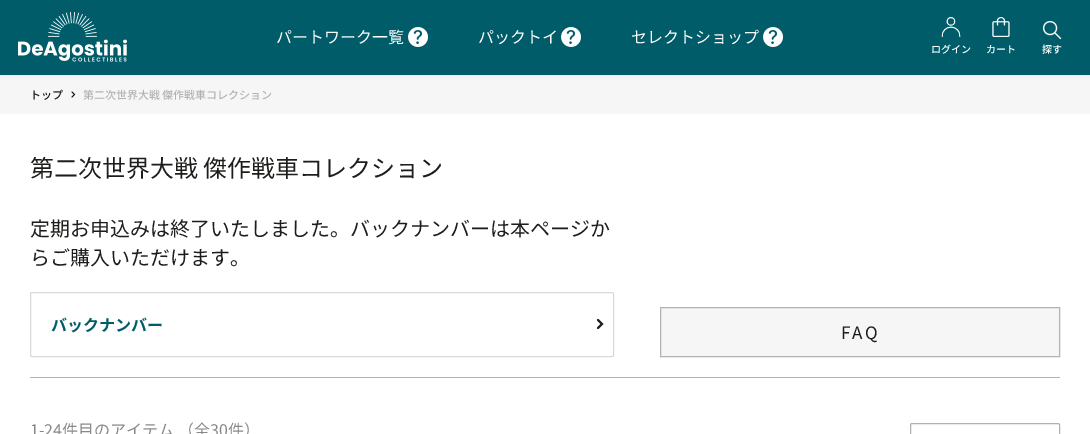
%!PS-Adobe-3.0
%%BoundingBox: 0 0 1090 434
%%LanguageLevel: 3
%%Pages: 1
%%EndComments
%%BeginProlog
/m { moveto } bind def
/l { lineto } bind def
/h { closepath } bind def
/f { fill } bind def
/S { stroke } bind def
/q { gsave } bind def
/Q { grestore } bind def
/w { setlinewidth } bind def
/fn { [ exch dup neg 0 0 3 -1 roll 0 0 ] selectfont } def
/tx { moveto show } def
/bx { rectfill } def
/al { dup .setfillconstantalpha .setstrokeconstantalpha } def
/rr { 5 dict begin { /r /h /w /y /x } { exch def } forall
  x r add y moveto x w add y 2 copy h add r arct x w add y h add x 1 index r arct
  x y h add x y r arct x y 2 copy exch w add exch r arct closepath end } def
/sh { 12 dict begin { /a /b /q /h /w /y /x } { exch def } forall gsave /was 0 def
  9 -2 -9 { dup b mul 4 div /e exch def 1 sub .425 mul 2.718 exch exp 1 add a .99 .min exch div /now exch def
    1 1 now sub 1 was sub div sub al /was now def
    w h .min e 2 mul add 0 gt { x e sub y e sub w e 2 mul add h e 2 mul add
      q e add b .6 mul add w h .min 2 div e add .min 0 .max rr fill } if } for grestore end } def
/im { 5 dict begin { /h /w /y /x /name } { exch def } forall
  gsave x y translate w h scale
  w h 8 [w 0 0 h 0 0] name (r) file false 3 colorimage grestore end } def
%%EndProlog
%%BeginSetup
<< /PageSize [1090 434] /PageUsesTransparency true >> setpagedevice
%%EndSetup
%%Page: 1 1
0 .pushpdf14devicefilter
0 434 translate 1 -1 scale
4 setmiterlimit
1 setgray
0 0 1090 434 bx
0.965 setgray
0 75 1090 39 bx
0 setgray
0 0 1090 75 0 2 0.1 sh
0 0.361 0.412 setrgbcolor
0 0 1090 75 bx
(image0.raw) 18 12 109 50 im
/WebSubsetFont-Regular 16 fn
1 setgray
(パートワーク一覧) 276 43 tx
(image1.raw) 408 27 20 20 im
(パックトイ) 478 43 tx
(image1.raw) 561 27 20 20 im
(セレクトショップ) 631 43 tx
(image1.raw) 763 27 20 20 im
(image2.raw) 941 17 20 20 im
/WebSubsetFont-Medium 10 fn
(ログイン) 931 53 tx
(image3.raw) 992 17 18 20 im
(カート) 986 53 tx
(image4.raw) 1042 20 20 20 im
(探す) 1042 53 tx
/WebSubsetFont-Medium 11 fn
0.114 0.114 0.106 setrgbcolor
(トップ) 30 99 tx
1 setlinecap
72 92 m 74.5 94.5 l 72 97 l S
0.698 setgray
(第二次世界大戦 傑作戦車コレクション) 83 99 tx
/WebSubsetFont-Regular 24 fn
0.114 0.114 0.106 setrgbcolor
(第二次世界大戦 傑作戦車コレクション) 30 177 tx
0.698 setgray
30 377 1030 1 bx
/WebSubsetFont-Regular 20 fn
0.114 0.114 0.106 setrgbcolor
(定期お申込みは終了いたしました。バックナンバーは本ページか) 30 236 tx
(らご購入いただけます。) 30 265 tx
0.851 setgray
0 setlinecap
30.5 292.5 583 64 1.5 rr S
/WebSubsetFont-Bold 16 fn
0 0.361 0.412 setrgbcolor
(バックナンバー) 51 331 tx
0.114 0.114 0.106 setrgbcolor
2 w
1 setlinecap
598 320 m 602 324 l 598 328 l S
0.965 setgray
660.5 307.5 m 1059.5 307.5 l 1059.5 356.5 l 660.5 356.5 l h q f Q
0.698 setgray
1 w
0 setlinecap
S
/WebSubsetFont-Regular 17 fn
0.114 0.114 0.106 setrgbcolor
841 339 m 2 0 (FAQ) ashow
/WebSubsetFont-Regular 16 fn
0.533 setgray
(1-24件目のアイテム （全30件）) 30 436 tx
0.698 setgray
910.5 423.5 149 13 1.5 rr S
.poppdf14devicefilter showpage
%%EOF
